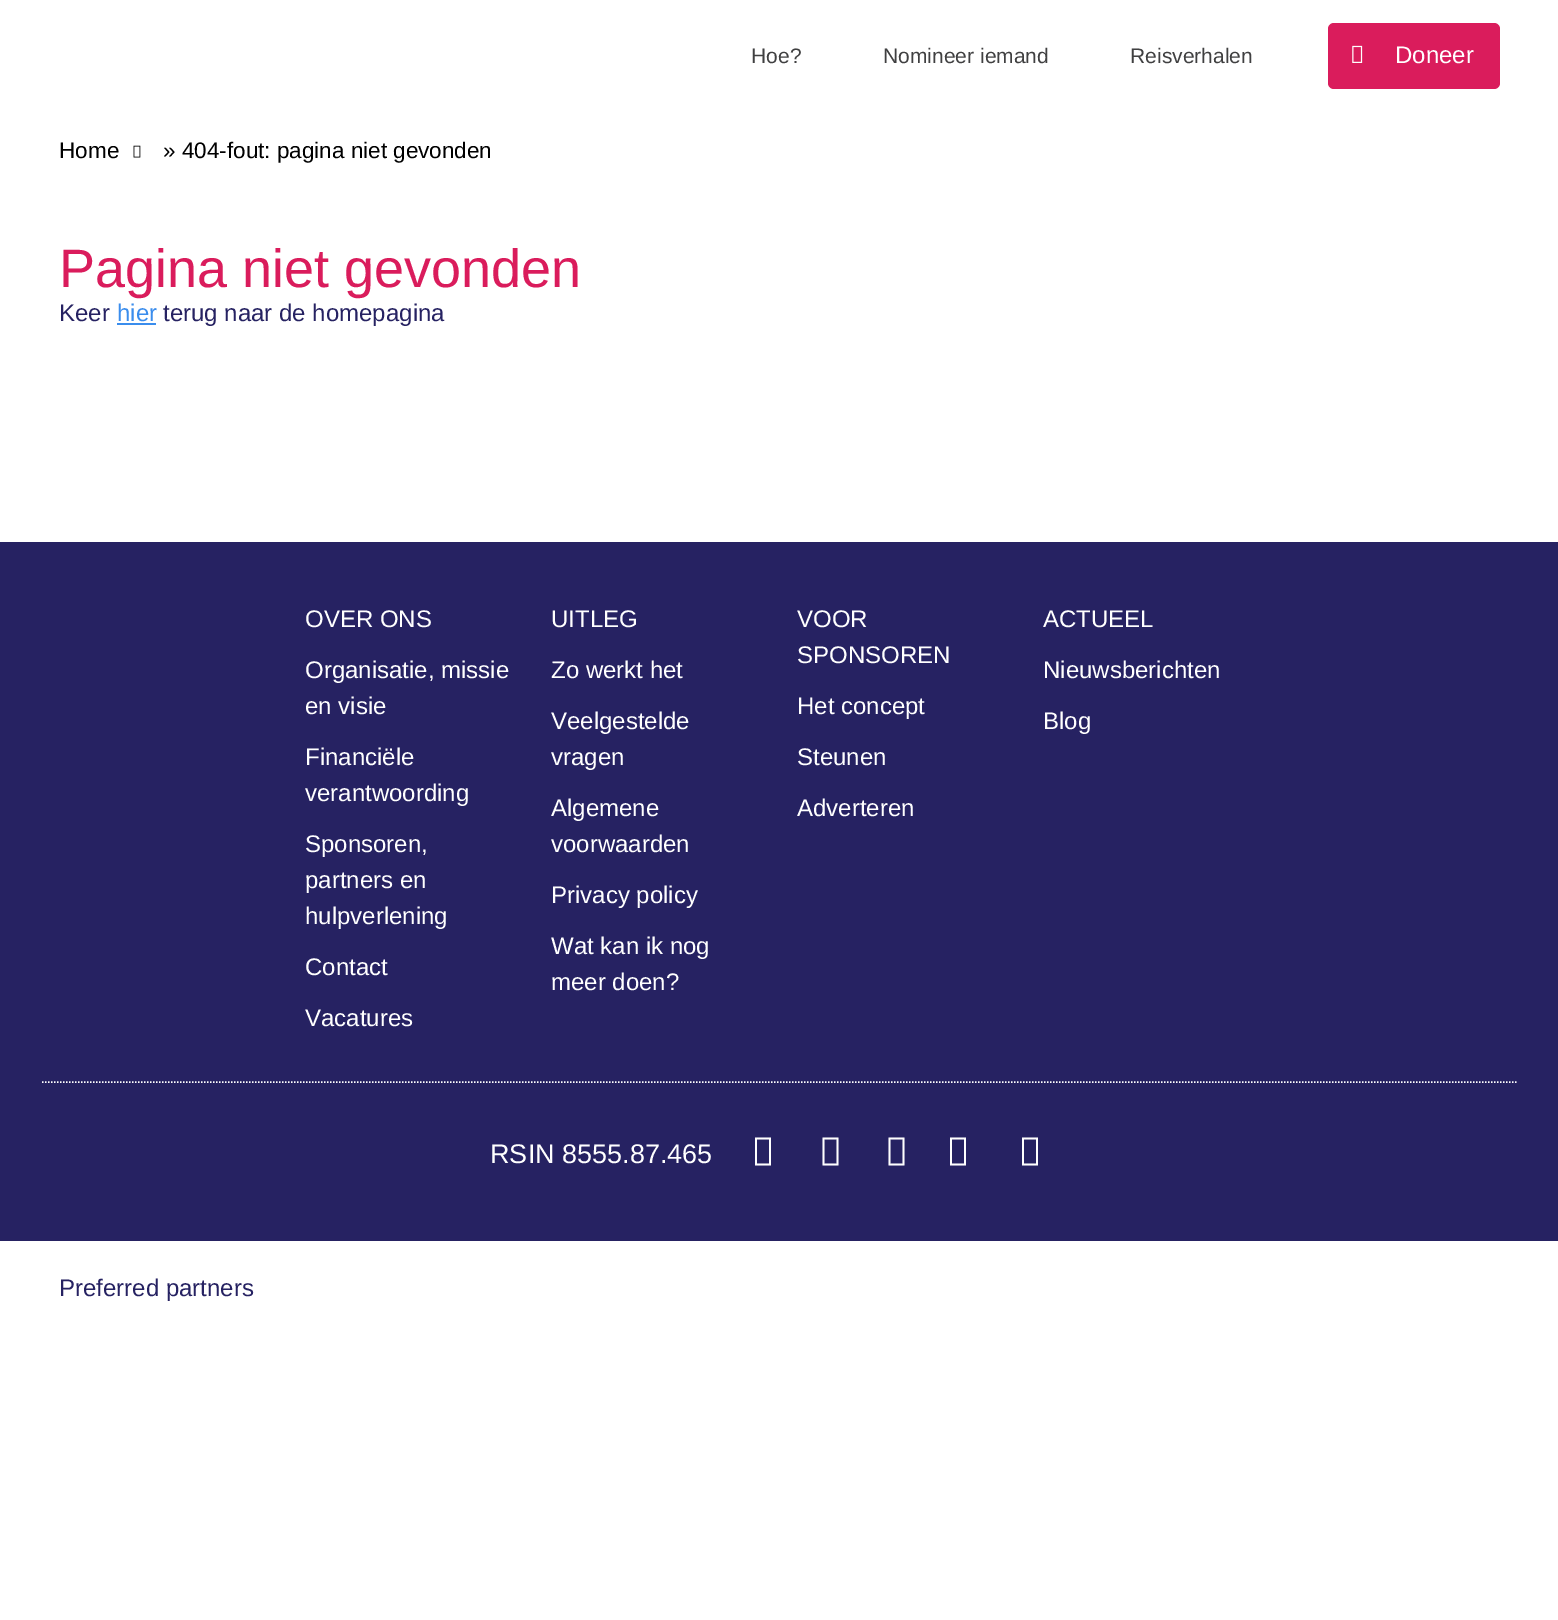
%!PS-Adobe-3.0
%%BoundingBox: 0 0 1558 1620
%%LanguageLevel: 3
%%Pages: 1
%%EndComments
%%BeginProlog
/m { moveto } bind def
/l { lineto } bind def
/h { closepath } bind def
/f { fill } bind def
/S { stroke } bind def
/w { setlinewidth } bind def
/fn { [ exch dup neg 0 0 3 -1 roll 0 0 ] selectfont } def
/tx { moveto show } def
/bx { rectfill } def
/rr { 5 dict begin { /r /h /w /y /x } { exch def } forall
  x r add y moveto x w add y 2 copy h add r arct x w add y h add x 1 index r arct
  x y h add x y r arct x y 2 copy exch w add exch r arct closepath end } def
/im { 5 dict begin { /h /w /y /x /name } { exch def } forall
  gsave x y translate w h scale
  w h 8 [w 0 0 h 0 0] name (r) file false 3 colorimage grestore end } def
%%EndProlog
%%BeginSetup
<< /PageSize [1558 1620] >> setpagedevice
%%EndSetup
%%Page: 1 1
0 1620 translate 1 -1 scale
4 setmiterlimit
1 setgray
0 0 1558 1620 bx
/LiberationSans-Regular 21 fn
0.251 0.251 0.255 setrgbcolor
(Hoe?) 751 63 tx
(Nomineer iemand) 883 63 tx
(Reisverhalen) 1130 63 tx
0.855 0.11 0.361 setrgbcolor
1328 23 172 66 6 rr f
(image0.raw) 1352 45 11 18 im
/LiberationSans-Regular 24 fn
1 setgray
(Doneer) 1395 63 tx
/LiberationSans-Regular 22.5 fn
0 setgray
(Home) 59 158 tx
(image1.raw) 133 145 8 13 im
(» 404-fout: pagina niet gevonden) 163 158 tx
/LiberationSans-Regular 54 fn
0.855 0.11 0.361 setrgbcolor
(Pagina niet gevonden) 59 287 tx
/LiberationSans-Regular 24 fn
0.149 0.133 0.384 setrgbcolor
(Keer) 59 321 tx
0.227 0.553 0.929 setrgbcolor
(hier) 117 321 tx
117 323 39 2 bx
0.149 0.133 0.384 setrgbcolor
(terug naar de homepagina) 163 321 tx
0 542 1558 699 bx
1 setgray
(OVER ONS) 305 627 tx
(Organisatie, missie) 305 678 tx
(en visie) 305 714 tx
(Financiële) 305 765 tx
(verantwoording) 305 801 tx
(Sponsoren,) 305 852 tx
(partners en) 305 888 tx
(hulpverlening) 305 924 tx
(Contact) 305 975 tx
(Vacatures) 305 1026 tx
(UITLEG) 551 627 tx
(Zo werkt het) 551 678 tx
(Veelgestelde) 551 729 tx
(vragen) 551 765 tx
(Algemene) 551 816 tx
(voorwaarden) 551 852 tx
(Privacy policy) 551 903 tx
(Wat kan ik nog) 551 954 tx
(meer doen?) 551 990 tx
(VOOR) 797 627 tx
(SPONSOREN) 797 663 tx
(Het concept) 797 714 tx
(Steunen) 797 765 tx
(Adverteren) 797 816 tx
(ACTUEEL) 1043 627 tx
(Nieuwsberichten) 1043 678 tx
(Blog) 1043 729 tx
1.5 w
[1.5 1.5] 0 setdash
42 1082 m 1518 1082 l S
/LiberationSans-Regular 27 fn
(RSIN 8555.87.465) 490 1163 tx
755 1165.5 m 755 1137.5 l 771 1137.5 l 771 1165.5 l h 757 1163.5 m 769 1163.5 l 769 1139.5 l 757 1139.5 l h f
822.5 1165.5 m 822.5 1137.5 l 838.5 1137.5 l 838.5 1165.5 l h 824.5 1163.5 m 836.5 1163.5 l 836.5 1139.5 l 824.5 1139.5 l h f
888.5 1165.5 m 888.5 1137.5 l 904.5 1137.5 l 904.5 1165.5 l h 890.5 1163.5 m 902.5 1163.5 l 902.5 1139.5 l 890.5 1139.5 l h f
950 1165.5 m 950 1137.5 l 966 1137.5 l 966 1165.5 l h 952 1163.5 m 964 1163.5 l 964 1139.5 l 952 1139.5 l h f
1022 1165.5 m 1022 1137.5 l 1038 1137.5 l 1038 1165.5 l h 1024 1163.5 m 1036 1163.5 l 1036 1139.5 l 1024 1139.5 l h f
/LiberationSans-Regular 24 fn
0.149 0.133 0.384 setrgbcolor
(Preferred partners) 59 1296 tx
showpage
%%EOF
